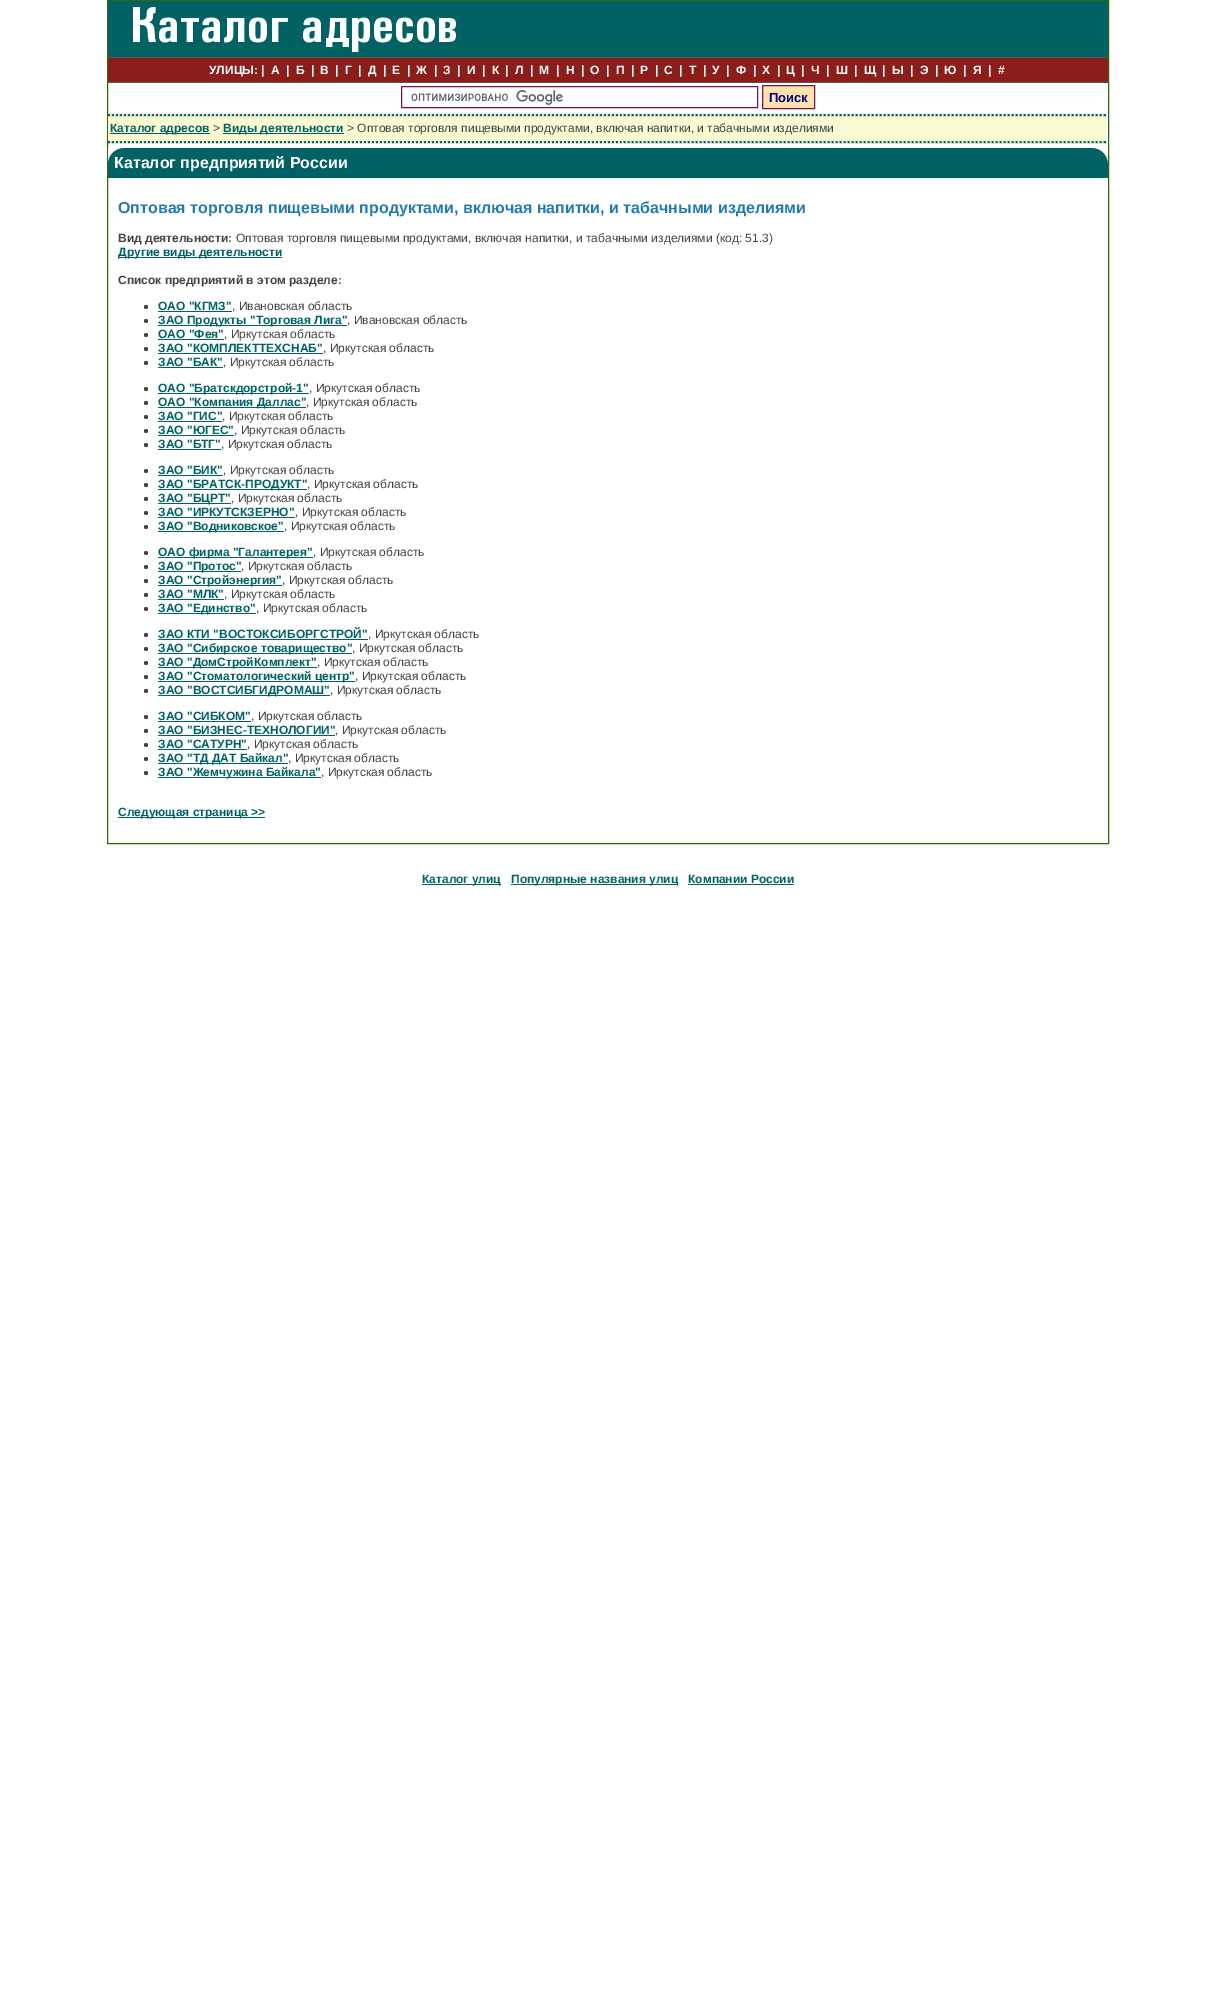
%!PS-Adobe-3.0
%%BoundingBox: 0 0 1216 1997
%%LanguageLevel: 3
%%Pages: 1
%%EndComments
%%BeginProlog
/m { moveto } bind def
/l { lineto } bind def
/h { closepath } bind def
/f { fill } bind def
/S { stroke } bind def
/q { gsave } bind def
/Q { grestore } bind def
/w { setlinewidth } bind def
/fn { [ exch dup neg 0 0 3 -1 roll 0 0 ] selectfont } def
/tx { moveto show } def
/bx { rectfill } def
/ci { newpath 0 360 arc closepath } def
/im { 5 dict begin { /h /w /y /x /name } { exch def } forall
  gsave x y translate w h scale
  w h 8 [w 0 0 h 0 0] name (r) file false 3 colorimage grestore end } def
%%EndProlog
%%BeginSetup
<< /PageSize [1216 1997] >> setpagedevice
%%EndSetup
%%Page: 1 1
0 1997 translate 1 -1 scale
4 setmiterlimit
1 setgray
0 0 1216 1997 bx
0.2 0.4 0.016 setrgbcolor
107.5 0.5 1001 843 rectstroke
0 0.384 0.392 setrgbcolor
108 1 1000 56 bx
(image0.raw) 133 7 323 45 im
0.545 0.118 0.106 setrgbcolor
108 58 1000 24 bx
0.333 setgray
108 57 1000 1 bx
108 82 1000 1 bx
/LiberationSans-Bold 12 fn
1 setgray
(УЛИЦЫ: |) 209 74 tx
(А) 271 74 tx
(|) 286 74 tx
(Б) 296 74 tx
(|) 311 74 tx
(В) 320 74 tx
(|) 335 74 tx
(Г) 345 74 tx
(|) 358 74 tx
(Д) 368 74 tx
(|) 383 74 tx
(Е) 392 74 tx
(|) 407 74 tx
(Ж) 416 74 tx
(|) 434 74 tx
(З) 443 74 tx
(|) 457 74 tx
(И) 467 74 tx
(|) 482 74 tx
(К) 492 74 tx
(|) 505 74 tx
(Л) 515 74 tx
(|) 530 74 tx
(М) 539 74 tx
(|) 556 74 tx
(Н) 566 74 tx
(|) 581 74 tx
(О) 590 74 tx
(|) 606 74 tx
(П) 616 74 tx
(|) 631 74 tx
(Р) 640 74 tx
(|) 655 74 tx
(С) 664 74 tx
(|) 679 74 tx
(Т) 689 74 tx
(|) 703 74 tx
(У) 712 74 tx
(|) 726 74 tx
(Ф) 736 74 tx
(|) 753 74 tx
(Х) 762 74 tx
(|) 777 74 tx
(Ц) 786 74 tx
(|) 801 74 tx
(Ч) 811 74 tx
(|) 826 74 tx
(Ш) 836 74 tx
(|) 854 74 tx
(Щ) 864 74 tx
(|) 882 74 tx
(Ы) 892 74 tx
(|) 910 74 tx
(Э) 920 74 tx
(|) 935 74 tx
(Ю) 944 74 tx
(|) 963 74 tx
(Я) 973 74 tx
(|) 988 74 tx
(#) 998 74 tx
(image1.raw) 411 90 152 15 im
0.471 0.075 0.318 setrgbcolor
401.5 86.5 356 21 rectstroke
0.996 0.89 0.678 setrgbcolor
762.5 85.5 m 814.5 85.5 l 814.5 108.5 l 762.5 108.5 l h q f Q
0.471 0.075 0.318 setrgbcolor
S
/LiberationSans-Bold 13 fn
0 0 0.502 setrgbcolor
(Поиск) 769 102 tx
0.98 0.98 0.824 setrgbcolor
108 114 998 29 bx
0 0.384 0.392 setrgbcolor
2 w
[2 2] 0 setdash
108 115 m 1106 115 l S
108 142 m 1106 142 l S
110 133 100 1 bx
/LiberationSans-Bold 12 fn
(Каталог адресов) 110 132 tx
/LiberationSans-Regular 12 fn
0.267 setgray
(>) 213 132 tx
0 0.384 0.392 setrgbcolor
223 133 121 1 bx
/LiberationSans-Bold 12 fn
(Виды деятельности) 223 132 tx
/LiberationSans-Regular 12 fn
0.267 setgray
(> Оптовая торговля пищевыми продуктами, включая напитки, и табачными изделиями) 347 132 tx
0 0.384 0.392 setrgbcolor
108 148 1000 30 bx
(image2.raw) 108 148 15 14 im
(image3.raw) 1093 148 15 16 im
/LiberationSans-Bold 16 fn
1 setgray
(Каталог предприятий России) 114 168 tx
0.137 0.478 0.698 setrgbcolor
(Оптовая торговля пищевыми продуктами, включая напитки, и табачными изделиями) 118 213 tx
/LiberationSans-Bold 12 fn
0.267 setgray
(Вид деятельности:) 118 242 tx
/LiberationSans-Regular 12 fn
(Оптовая торговля пищевыми продуктами, включая напитки, и табачными изделиями \(код: 51.3\)) 236 242 tx
0 0.384 0.392 setrgbcolor
118 257 164 1 bx
/LiberationSans-Bold 12 fn
(Другие виды деятельности) 118 256 tx
0.267 setgray
(Список предприятий в этом разделе:) 118 284 tx
146 307 2 ci f
0 0.384 0.392 setrgbcolor
(ОАО "КГМЗ") 158 310 tx
158 311 74 1 bx
/LiberationSans-Regular 12 fn
0.267 setgray
(, Ивановская область) 232 310 tx
146 321 2 ci f
0 0.384 0.392 setrgbcolor
158 325 189 1 bx
/LiberationSans-Bold 12 fn
(ЗАО Продукты "Торговая Лига") 158 324 tx
/LiberationSans-Regular 12 fn
0.267 setgray
(, Ивановская область) 347 324 tx
146 335 2 ci f
/LiberationSans-Bold 12 fn
0 0.384 0.392 setrgbcolor
(ОАО "Фея") 158 338 tx
158 339 66 1 bx
/LiberationSans-Regular 12 fn
0.267 setgray
(, Иркутская область) 224 338 tx
146 349 2 ci f
/LiberationSans-Bold 12 fn
0 0.384 0.392 setrgbcolor
(ЗАО "КОМПЛЕКТТЕХСНАБ") 158 352 tx
158 353 165 1 bx
/LiberationSans-Regular 12 fn
0.267 setgray
(, Иркутская область) 323 352 tx
146 363 2 ci f
/LiberationSans-Bold 12 fn
0 0.384 0.392 setrgbcolor
(ЗАО "БАК") 158 366 tx
158 367 65 1 bx
/LiberationSans-Regular 12 fn
0.267 setgray
(, Иркутская область) 223 366 tx
146 389 2 ci f
0 0.384 0.392 setrgbcolor
158 393 151 1 bx
/LiberationSans-Bold 12 fn
(ОАО "Братскдорстрой-1") 158 392 tx
/LiberationSans-Regular 12 fn
0.267 setgray
(, Иркутская область) 309 392 tx
146 403 2 ci f
0 0.384 0.392 setrgbcolor
158 407 148 1 bx
/LiberationSans-Bold 12 fn
(ОАО "Компания Даллас") 158 406 tx
/LiberationSans-Regular 12 fn
0.267 setgray
(, Иркутская область) 306 406 tx
146 417 2 ci f
/LiberationSans-Bold 12 fn
0 0.384 0.392 setrgbcolor
(ЗАО "ГИС") 158 420 tx
158 421 64 1 bx
/LiberationSans-Regular 12 fn
0.267 setgray
(, Иркутская область) 222 420 tx
146 431 2 ci f
/LiberationSans-Bold 12 fn
0 0.384 0.392 setrgbcolor
(ЗАО "ЮГЕС") 158 434 tx
158 435 76 1 bx
/LiberationSans-Regular 12 fn
0.267 setgray
(, Иркутская область) 234 434 tx
146 445 2 ci f
/LiberationSans-Bold 12 fn
0 0.384 0.392 setrgbcolor
(ЗАО "БТГ") 158 448 tx
158 449 63 1 bx
/LiberationSans-Regular 12 fn
0.267 setgray
(, Иркутская область) 221 448 tx
146 471 2 ci f
/LiberationSans-Bold 12 fn
0 0.384 0.392 setrgbcolor
(ЗАО "БИК") 158 474 tx
158 475 65 1 bx
/LiberationSans-Regular 12 fn
0.267 setgray
(, Иркутская область) 223 474 tx
146 485 2 ci f
0 0.384 0.392 setrgbcolor
158 489 149 1 bx
/LiberationSans-Bold 12 fn
(ЗАО "БРАТСК-ПРОДУКТ") 158 488 tx
/LiberationSans-Regular 12 fn
0.267 setgray
(, Иркутская область) 307 488 tx
146 499 2 ci f
0 0.384 0.392 setrgbcolor
158 503 73 1 bx
/LiberationSans-Bold 12 fn
(ЗАО "БЦРТ") 158 502 tx
/LiberationSans-Regular 12 fn
0.267 setgray
(, Иркутская область) 231 502 tx
146 513 2 ci f
/LiberationSans-Bold 12 fn
0 0.384 0.392 setrgbcolor
(ЗАО "ИРКУТСКЗЕРНО") 158 516 tx
158 517 137 1 bx
/LiberationSans-Regular 12 fn
0.267 setgray
(, Иркутская область) 295 516 tx
146 527 2 ci f
0 0.384 0.392 setrgbcolor
158 531 126 1 bx
/LiberationSans-Bold 12 fn
(ЗАО "Водниковское") 158 530 tx
/LiberationSans-Regular 12 fn
0.267 setgray
(, Иркутская область) 284 530 tx
146 553 2 ci f
0 0.384 0.392 setrgbcolor
158 557 155 1 bx
/LiberationSans-Bold 12 fn
(ОАО фирма "Галантерея") 158 556 tx
/LiberationSans-Regular 12 fn
0.267 setgray
(, Иркутская область) 313 556 tx
146 567 2 ci f
0 0.384 0.392 setrgbcolor
158 571 83 1 bx
/LiberationSans-Bold 12 fn
(ЗАО "Протос") 158 570 tx
/LiberationSans-Regular 12 fn
0.267 setgray
(, Иркутская область) 241 570 tx
146 581 2 ci f
0 0.384 0.392 setrgbcolor
158 585 124 1 bx
/LiberationSans-Bold 12 fn
(ЗАО "Стройэнергия") 158 584 tx
/LiberationSans-Regular 12 fn
0.267 setgray
(, Иркутская область) 282 584 tx
146 595 2 ci f
/LiberationSans-Bold 12 fn
0 0.384 0.392 setrgbcolor
(ЗАО "МЛК") 158 598 tx
158 599 66 1 bx
/LiberationSans-Regular 12 fn
0.267 setgray
(, Иркутская область) 224 598 tx
146 609 2 ci f
0 0.384 0.392 setrgbcolor
158 613 98 1 bx
/LiberationSans-Bold 12 fn
(ЗАО "Единство") 158 612 tx
/LiberationSans-Regular 12 fn
0.267 setgray
(, Иркутская область) 256 612 tx
146 635 2 ci f
/LiberationSans-Bold 12 fn
0 0.384 0.392 setrgbcolor
(ЗАО КТИ "ВОСТОКСИБОРГСТРОЙ") 158 638 tx
158 639 210 1 bx
/LiberationSans-Regular 12 fn
0.267 setgray
(, Иркутская область) 368 638 tx
146 649 2 ci f
0 0.384 0.392 setrgbcolor
158 653 194 1 bx
/LiberationSans-Bold 12 fn
(ЗАО "Сибирское товарищество") 158 652 tx
/LiberationSans-Regular 12 fn
0.267 setgray
(, Иркутская область) 352 652 tx
146 663 2 ci f
0 0.384 0.392 setrgbcolor
158 667 159 1 bx
/LiberationSans-Bold 12 fn
(ЗАО "ДомСтройКомплект") 158 666 tx
/LiberationSans-Regular 12 fn
0.267 setgray
(, Иркутская область) 317 666 tx
146 677 2 ci f
0 0.384 0.392 setrgbcolor
158 681 197 1 bx
/LiberationSans-Bold 12 fn
(ЗАО "Стоматологический центр") 158 680 tx
/LiberationSans-Regular 12 fn
0.267 setgray
(, Иркутская область) 355 680 tx
146 691 2 ci f
0 0.384 0.392 setrgbcolor
158 695 172 1 bx
/LiberationSans-Bold 12 fn
(ЗАО "ВОСТСИБГИДРОМАШ") 158 694 tx
/LiberationSans-Regular 12 fn
0.267 setgray
(, Иркутская область) 330 694 tx
146 717 2 ci f
/LiberationSans-Bold 12 fn
0 0.384 0.392 setrgbcolor
(ЗАО "СИБКОМ") 158 720 tx
158 721 93 1 bx
/LiberationSans-Regular 12 fn
0.267 setgray
(, Иркутская область) 251 720 tx
146 731 2 ci f
/LiberationSans-Bold 12 fn
0 0.384 0.392 setrgbcolor
(ЗАО "БИЗНЕС-ТЕХНОЛОГИИ") 158 734 tx
158 735 177 1 bx
/LiberationSans-Regular 12 fn
0.267 setgray
(, Иркутская область) 335 734 tx
146 745 2 ci f
/LiberationSans-Bold 12 fn
0 0.384 0.392 setrgbcolor
(ЗАО "САТУРН") 158 748 tx
158 749 89 1 bx
/LiberationSans-Regular 12 fn
0.267 setgray
(, Иркутская область) 247 748 tx
146 759 2 ci f
0 0.384 0.392 setrgbcolor
158 763 130 1 bx
/LiberationSans-Bold 12 fn
(ЗАО "ТД ДАТ Байкал") 158 762 tx
/LiberationSans-Regular 12 fn
0.267 setgray
(, Иркутская область) 288 762 tx
146 773 2 ci f
0 0.384 0.392 setrgbcolor
158 777 163 1 bx
/LiberationSans-Bold 12 fn
(ЗАО "Жемчужина Байкала") 158 776 tx
/LiberationSans-Regular 12 fn
0.267 setgray
(, Иркутская область) 321 776 tx
0 0.384 0.392 setrgbcolor
118 817 147 1 bx
/LiberationSans-Bold 12 fn
(Следующая страница >>) 118 816 tx
422 884 79 1 bx
(Каталог улиц) 422 883 tx
511 884 167 1 bx
(Популярные названия улиц) 511 883 tx
(Компании России) 688 883 tx
688 884 106 1 bx
showpage
%%EOF
